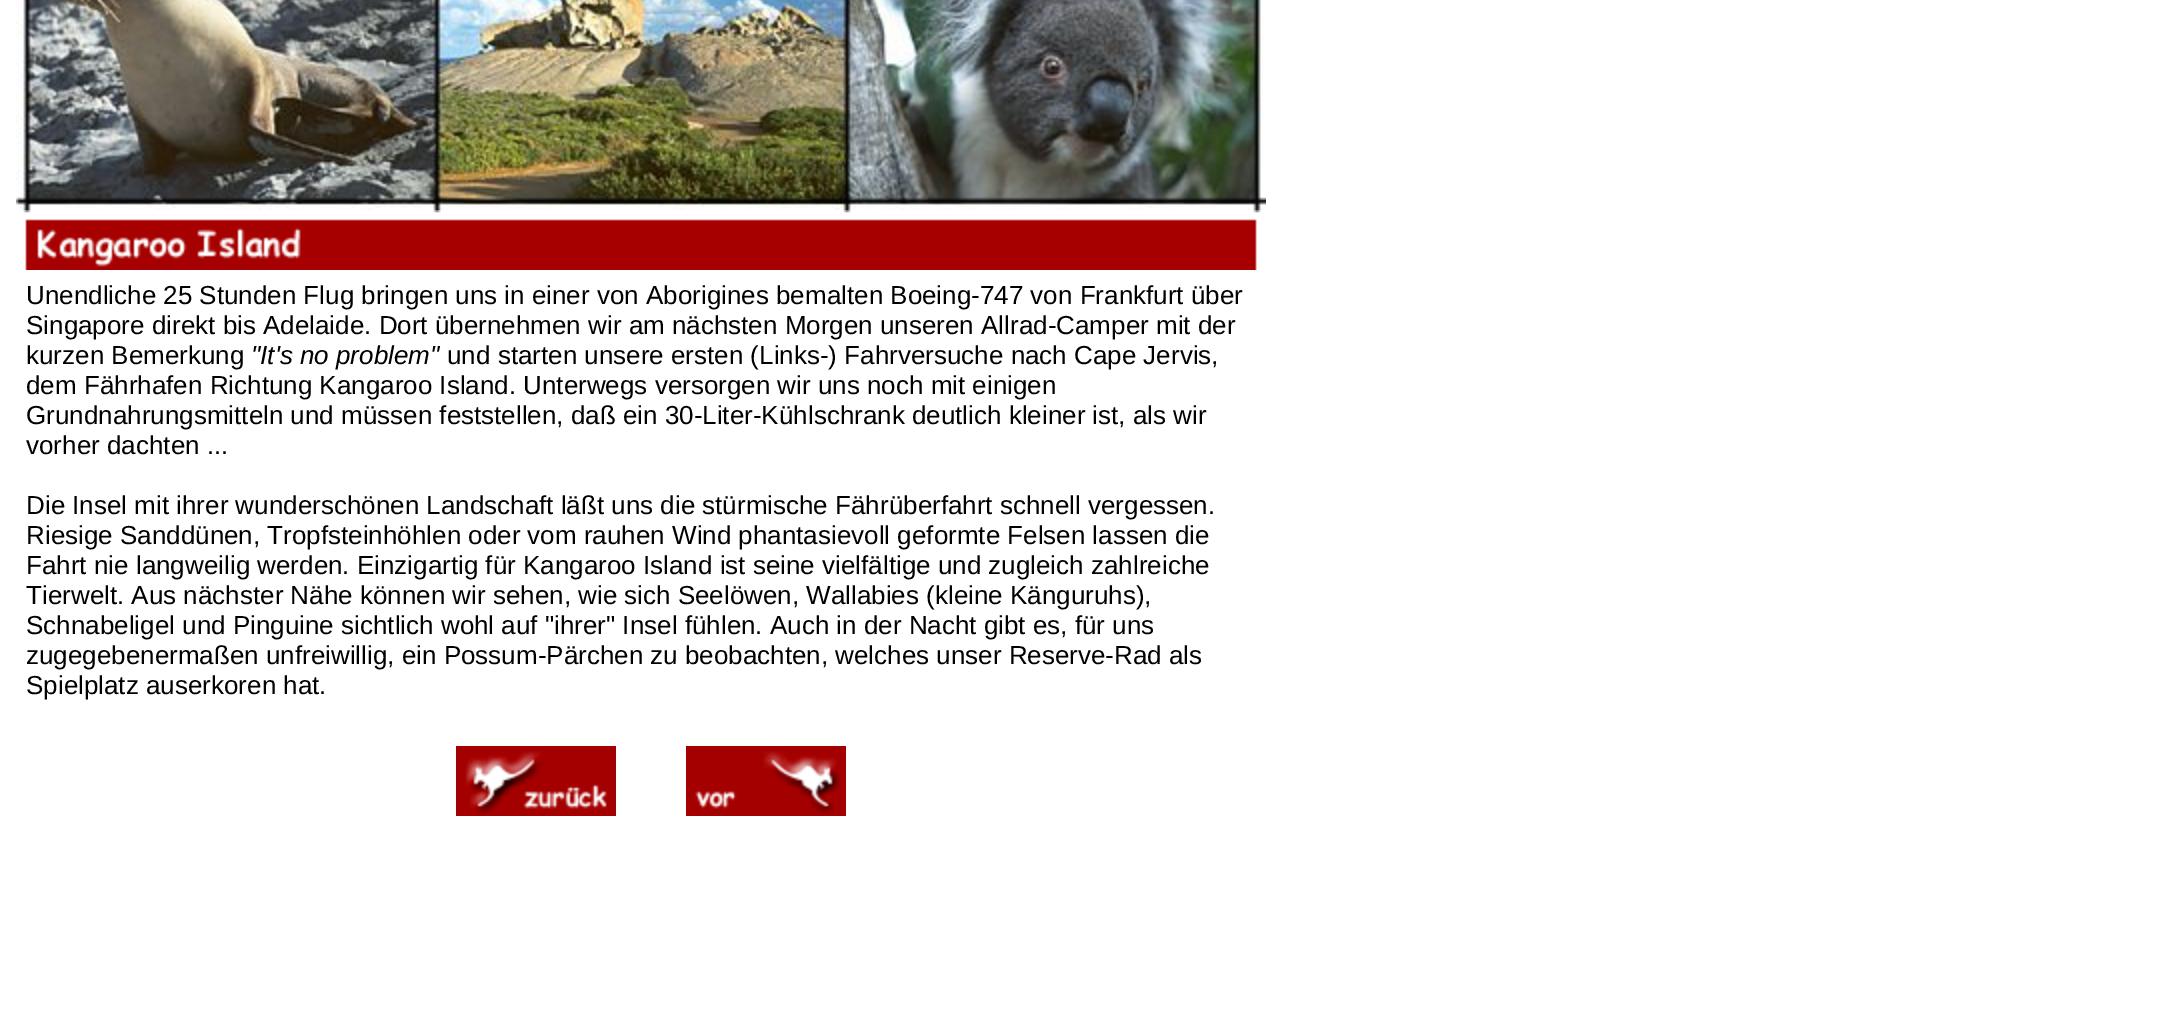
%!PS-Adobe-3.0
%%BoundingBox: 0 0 2160 1021
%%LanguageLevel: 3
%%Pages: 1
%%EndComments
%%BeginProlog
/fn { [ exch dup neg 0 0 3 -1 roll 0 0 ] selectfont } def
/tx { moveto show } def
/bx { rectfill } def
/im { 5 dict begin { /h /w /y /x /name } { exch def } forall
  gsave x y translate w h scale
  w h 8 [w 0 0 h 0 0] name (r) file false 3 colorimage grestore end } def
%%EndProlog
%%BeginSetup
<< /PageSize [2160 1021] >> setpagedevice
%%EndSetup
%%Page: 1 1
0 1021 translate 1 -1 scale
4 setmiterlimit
1 setgray
0 0 2160 1021 bx
(image0.raw) 16 0 1250 210 im
(image1.raw) 23 210 1238 60 im
/LiberationSans-Regular 26 fn
0 setgray
(Unendliche 25 Stunden Flug bringen uns in einer von Aborigines bemalten Boeing-747 von Frankfurt über) 26 304 tx
(Singapore direkt bis Adelaide. Dort übernehmen wir am nächsten Morgen unseren Allrad-Camper mit der) 26 334 tx
(kurzen Bemerkung) 26 364 tx
/LiberationSans-Italic 26 fn
("It's no problem") 251 364 tx
/LiberationSans-Regular 26 fn
(und starten unsere ersten \(Links-\) Fahrversuche nach Cape Jervis,) 447 364 tx
(dem Fährhafen Richtung Kangaroo Island. Unterwegs versorgen wir uns noch mit einigen) 26 394 tx
(Grundnahrungsmitteln und müssen feststellen, daß ein 30-Liter-Kühlschrank deutlich kleiner ist, als wir) 26 424 tx
(vorher dachten ...) 26 454 tx
(Die Insel mit ihrer wunderschönen Landschaft läßt uns die stürmische Fährüberfahrt schnell vergessen.) 26 514 tx
(Riesige Sanddünen, Tropfsteinhöhlen oder vom rauhen Wind phantasievoll geformte Felsen lassen die) 26 544 tx
(Fahrt nie langweilig werden. Einzigartig für Kangaroo Island ist seine vielfältige und zugleich zahlreiche) 26 574 tx
(Tierwelt. Aus nächster Nähe können wir sehen, wie sich Seelöwen, Wallabies \(kleine Känguruhs\),) 26 604 tx
(Schnabeligel und Pinguine sichtlich wohl auf "ihrer" Insel fühlen. Auch in der Nacht gibt es, für uns) 26 634 tx
(zugegebenermaßen unfreiwillig, ein Possum-Pärchen zu beobachten, welches unser Reserve-Rad als) 26 664 tx
(Spielplatz auserkoren hat.) 26 694 tx
(image2.raw) 456 746 160 70 im
(image3.raw) 686 746 160 70 im
showpage
%%EOF
